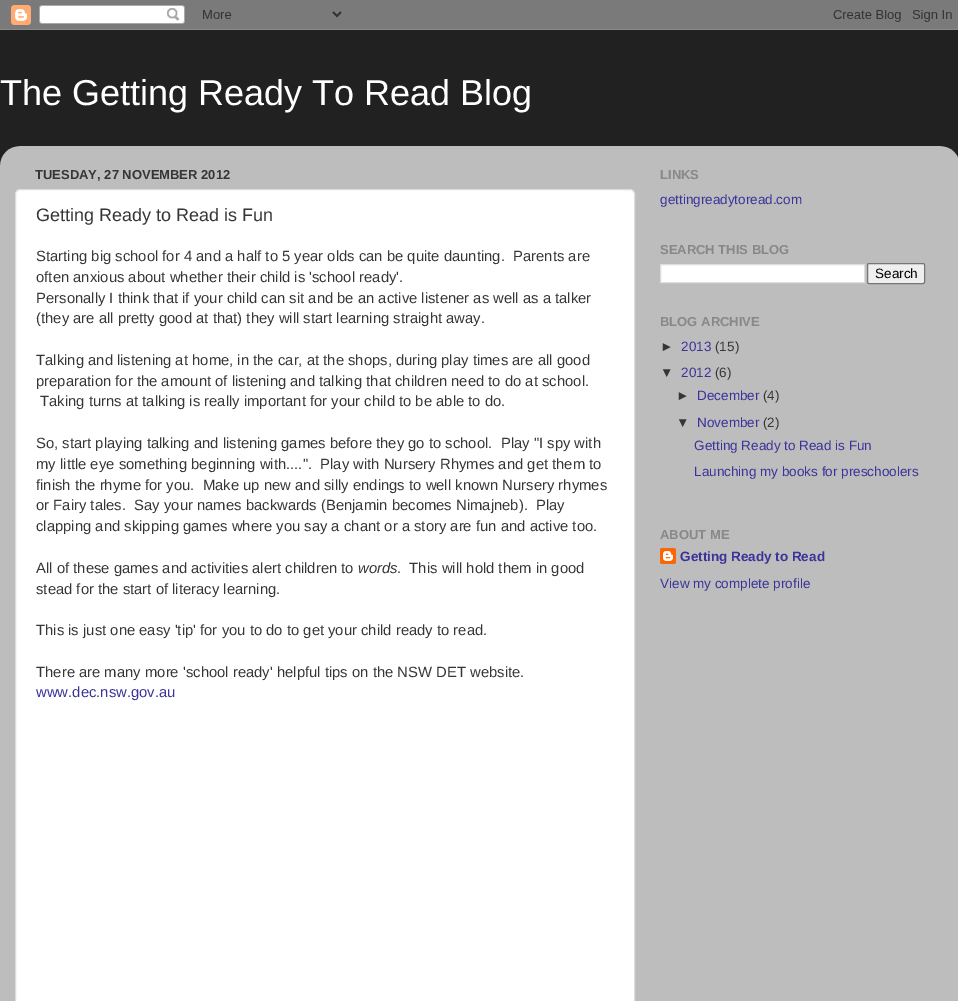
%!PS-Adobe-3.0
%%BoundingBox: 0 0 958 1001
%%LanguageLevel: 3
%%Pages: 1
%%EndComments
%%BeginProlog
/m { moveto } bind def
/l { lineto } bind def
/h { closepath } bind def
/f { fill } bind def
/S { stroke } bind def
/q { gsave } bind def
/Q { grestore } bind def
/fn { [ exch dup neg 0 0 3 -1 roll 0 0 ] selectfont } def
/tx { moveto show } def
/bx { rectfill } def
/rr { 5 dict begin { /r /h /w /y /x } { exch def } forall
  x r add y moveto x w add y 2 copy h add r arct x w add y h add x 1 index r arct
  x y h add x y r arct x y 2 copy exch w add exch r arct closepath end } def
/im { 5 dict begin { /h /w /y /x /name } { exch def } forall
  gsave x y translate w h scale
  w h 8 [w 0 0 h 0 0] name (r) file false 3 colorimage grestore end } def
%%EndProlog
%%BeginSetup
<< /PageSize [958 1001] >> setpagedevice
%%EndSetup
%%Page: 1 1
0 1001 translate 1 -1 scale
4 setmiterlimit
0.129 setgray
0 0 958 1001 bx
(image0.raw) 0 0 958 30 im
/LiberationSans-Regular 36 fn
1 setgray
(The Getting Ready To Read Blog) 0 105 tx
(image1.raw) 0 146 958 855 im
/LiberationSans-Bold 13 fn
0.212 setgray
(TUESDAY, 27 NOVEMBER 2012) 35 179 tx
1 setgray
15.5 189.5 619 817 4.5 rr q f Q
0.867 setgray
S
/LiberationSans-Regular 18 fn
0.212 setgray
(Getting Ready to Read is Fun) 36 221 tx
/LiberationSans-Regular 14.85 fn
(Starting big school for 4 and a half to 5 year olds can be quite daunting.  Parents are) 36 261 tx
(often anxious about whether their child is 'school ready'.) 36 282 tx
(Personally I think that if your child can sit and be an active listener as well as a talker) 36 303 tx
(\(they are all pretty good at that\) they will start learning straight away.) 36 323 tx
(Talking and listening at home, in the car, at the shops, during play times are all good) 36 365 tx
(preparation for the amount of listening and talking that children need to do at school.) 36 386 tx
(Taking turns at talking is really important for your child to be able to do.) 40 406 tx
(So, start playing talking and listening games before they go to school.  Play "I spy with) 36 448 tx
(my little eye something beginning with....".  Play with Nursery Rhymes and get them to) 36 469 tx
(finish the rhyme for you.  Make up new and silly endings to well known Nursery rhymes) 36 490 tx
(or Fairy tales.  Say your names backwards \(Benjamin becomes Nimajneb\).  Play) 36 510 tx
(clapping and skipping games where you say a chant or a story are fun and active too.) 36 531 tx
(All of these games and activities alert children to) 36 573 tx
/LiberationSans-Italic 14.85 fn
(words) 358 573 tx
/LiberationSans-Regular 14.85 fn
(.  This will hold them in good) 397 573 tx
(stead for the start of literacy learning.) 36 594 tx
(This is just one easy 'tip' for you to do to get your child ready to read.) 36 635 tx
(There are many more 'school ready' helpful tips on the NSW DET website.) 36 677 tx
0.231 0.2 0.604 setrgbcolor
(www.dec.nsw.gov.au) 36 697 tx
/LiberationSans-Bold 13 fn
0.533 setgray
(LINKS) 660 179 tx
/LiberationSans-Regular 13.5 fn
0.231 0.2 0.604 setrgbcolor
(gettingreadytoread.com) 660 204 tx
/LiberationSans-Bold 13 fn
0.533 setgray
(SEARCH THIS BLOG) 660 254 tx
1 setgray
660.5 264.5 m 864.5 264.5 l 864.5 282.5 l 660.5 282.5 l h q f Q
0.867 setgray
S
0.937 setgray
867.5 263.5 57 20 1.5 rr q f Q
0.463 setgray
S
/LiberationSans-Regular 13.5 fn
0 setgray
(Search) 875 278 tx
/LiberationSans-Bold 13 fn
0.533 setgray
(BLOG ARCHIVE) 660 326 tx
/LiberationSans-Regular 13.5 fn
0.212 setgray
(►) 660 351 tx
0.231 0.2 0.604 setrgbcolor
(2013) 681 351 tx
0.212 setgray
(\(15\)) 715 351 tx
(▼) 660 377 tx
0.231 0.2 0.604 setrgbcolor
(2012) 681 377 tx
0.212 setgray
(\(6\)) 715 377 tx
(►) 676 400 tx
0.231 0.2 0.604 setrgbcolor
(December) 697 400 tx
0.212 setgray
(\(4\)) 763 400 tx
(▼) 676 427 tx
0.231 0.2 0.604 setrgbcolor
(November) 697 427 tx
0.212 setgray
(\(2\)) 763 427 tx
0.231 0.2 0.604 setrgbcolor
(Getting Ready to Read is Fun) 694 450 tx
(Launching my books for preschoolers) 694 476 tx
/LiberationSans-Bold 13 fn
0.533 setgray
(ABOUT ME) 660 539 tx
(image2.raw) 660 548 16 16 im
/LiberationSans-Bold 13.5 fn
0.231 0.2 0.604 setrgbcolor
(Getting Ready to Read) 680 561 tx
/LiberationSans-Regular 13.5 fn
(View my complete profile) 660 588 tx
showpage
%%EOF
